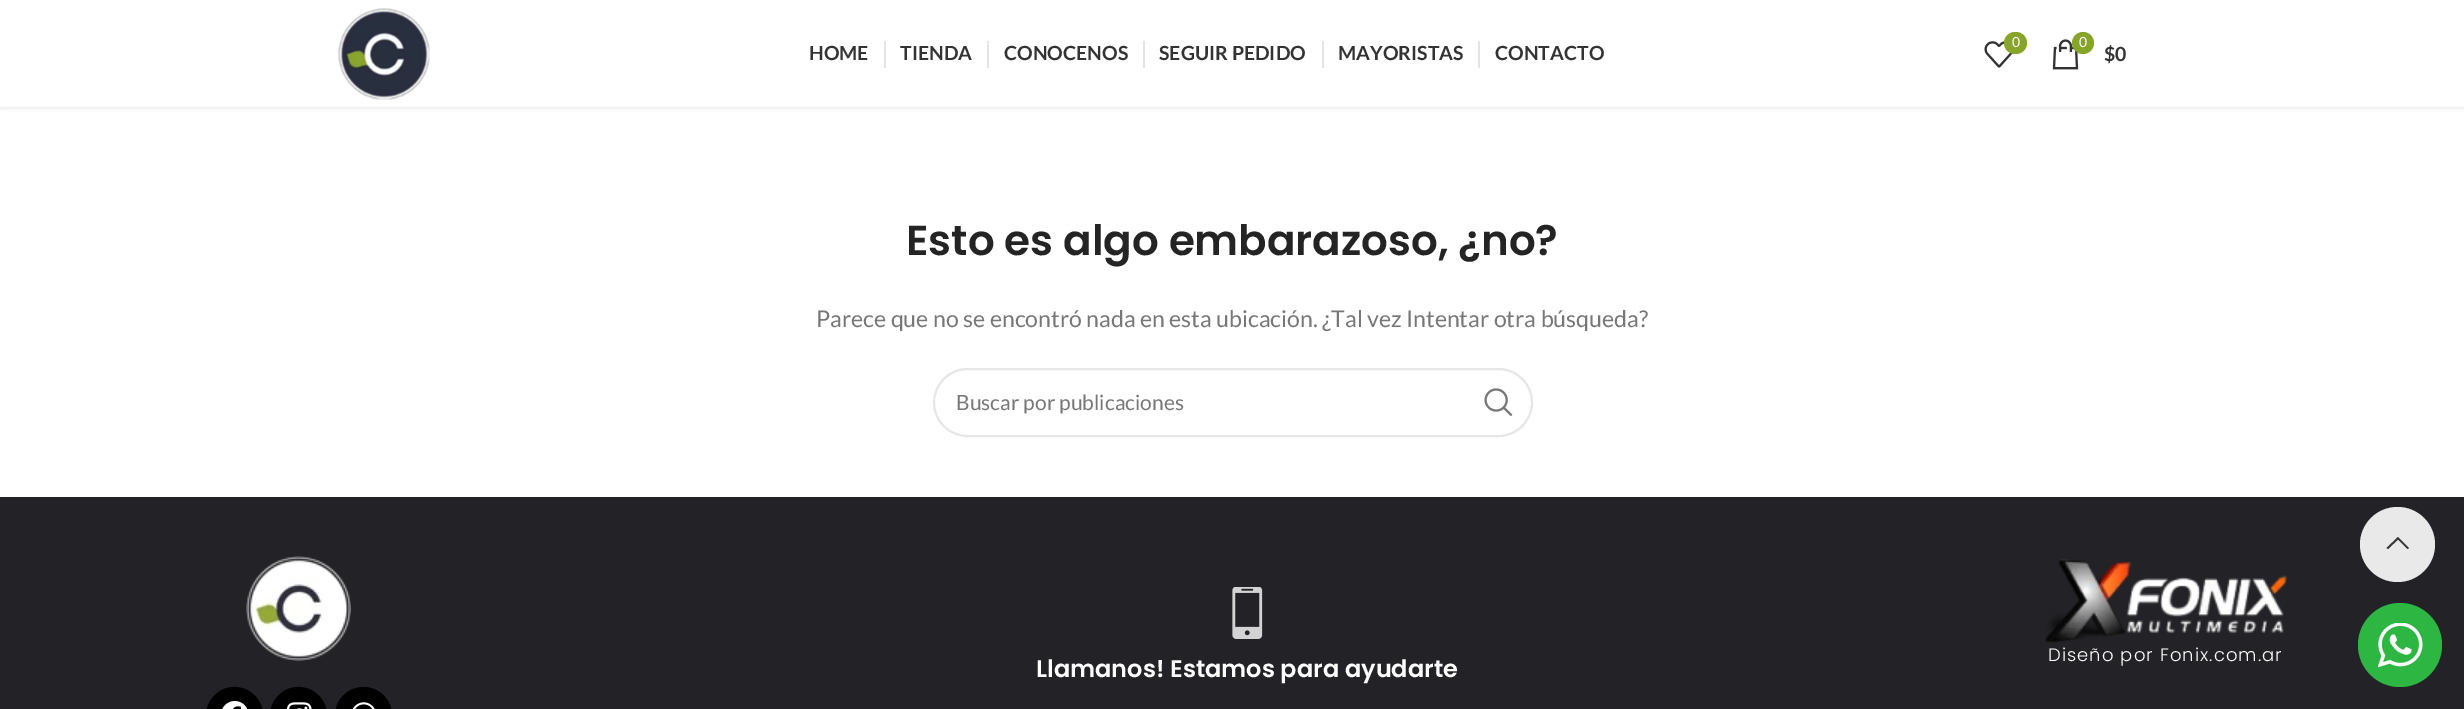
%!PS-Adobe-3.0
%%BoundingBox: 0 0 2464 709
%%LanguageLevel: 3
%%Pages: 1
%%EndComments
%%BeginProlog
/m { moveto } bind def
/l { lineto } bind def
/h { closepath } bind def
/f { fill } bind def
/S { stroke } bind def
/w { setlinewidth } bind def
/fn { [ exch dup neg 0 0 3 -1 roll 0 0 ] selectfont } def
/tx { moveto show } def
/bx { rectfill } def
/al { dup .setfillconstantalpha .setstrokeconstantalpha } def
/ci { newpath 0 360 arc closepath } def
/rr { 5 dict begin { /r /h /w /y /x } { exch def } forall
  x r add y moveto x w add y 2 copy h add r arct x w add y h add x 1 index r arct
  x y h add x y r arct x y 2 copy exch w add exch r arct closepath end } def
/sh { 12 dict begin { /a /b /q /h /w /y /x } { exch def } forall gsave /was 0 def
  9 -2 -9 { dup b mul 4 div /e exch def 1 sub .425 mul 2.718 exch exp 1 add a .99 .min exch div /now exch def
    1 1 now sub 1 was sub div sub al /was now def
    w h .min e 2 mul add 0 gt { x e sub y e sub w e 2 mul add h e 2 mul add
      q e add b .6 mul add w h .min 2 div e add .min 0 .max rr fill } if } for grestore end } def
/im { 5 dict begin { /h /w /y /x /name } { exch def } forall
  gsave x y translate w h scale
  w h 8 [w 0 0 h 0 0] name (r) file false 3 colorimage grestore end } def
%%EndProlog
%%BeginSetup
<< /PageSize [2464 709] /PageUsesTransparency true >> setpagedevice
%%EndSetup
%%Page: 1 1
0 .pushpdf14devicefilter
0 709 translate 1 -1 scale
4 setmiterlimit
1 setgray
0 0 2464 709 bx
0 setgray
0 2 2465 106 0 2 0.1 sh
1 setgray
0 0 2464 107 bx
(image0.raw) 338 8 92 92 im
/Lato-Bold 19.5 fn
0.2 setgray
(HOME) 809 60 tx
0.894 setgray
884 41 2 27 bx
0.2 setgray
(TIENDA) 900 60 tx
0.894 setgray
987 41 2 27 bx
0.2 setgray
(CONOCENOS) 1004 60 tx
0.894 setgray
1143 41 2 27 bx
0.2 setgray
(SEGUIR PEDIDO) 1159 60 tx
0.894 setgray
1322 41 2 27 bx
0.2 setgray
(MAYORISTAS) 1338 60 tx
0.894 setgray
1478 41 2 27 bx
0.2 setgray
(CONTACTO) 1495 60 tx
(image1.raw) 1984 41 29 27 im
0.529 0.647 0.165 setrgbcolor
2004 32 23 22 11 rr f
/Lato-Regular 14 fn
1 setgray
(0) 2012 47 tx
(image2.raw) 2052 39 27 31 im
0.529 0.647 0.165 setrgbcolor
2083 43 11 ci f
1 setgray
(0) 2079 47 tx
/Lato-Bold 19.5 fn
0.2 setgray
($0) 2104 61 tx
/Poppins-SemiBold 42 fn
0.141 setgray
(Esto es algo embarazoso, ¿no?) 906 255 tx
/Lato-Regular 23.1 fn
0.467 setgray
(Parece que no se encontró nada en esta ubicación. ¿Tal vez Intentar otra búsqueda?) 816 327 tx
0.902 setgray
2 w
934 369 598 67 33.5 rr S
/Lato-Regular 21 fn
0.467 setgray
(Buscar por publicaciones) 956 410 tx
(image3.raw) 1484 388 29 29 im
0.137 0.137 0.153 setrgbcolor
0 497 2464 212 bx
(image4.raw) 246 556 105 105 im
0 setgray
206 687 57 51 28.5 rr f
(image5.raw) 222 701 26 8 im
270 687 57 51 28.5 rr f
(image6.raw) 286 702 26 7 im
335 687 57 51 28.5 rr f
(image7.raw) 352 702 23 7 im
(image8.raw) 2045 559 243 84 im
/Poppins-Light 18 fn
1 setgray
2048 661 m 1.05 0 (Diseño por Fonix.com.ar) ashow
(image9.raw) 1232 587 31 52 im
/Poppins-SemiBold 24 fn
(Llamanos! Estamos para ayudarte) 1036 677 tx
0.9 al
2397.5 544.5 37.5 ci f
1 al
0.2 setgray
2407.5 549 m 2409 548 l 2398 537 l 2386.5 548 l 2388 549 l 2398 539.5 l h f
0.176 0.718 0.259 setrgbcolor
2400 645 42 ci f
(image10.raw) 2378 623 45 45 im
.poppdf14devicefilter showpage
%%EOF
